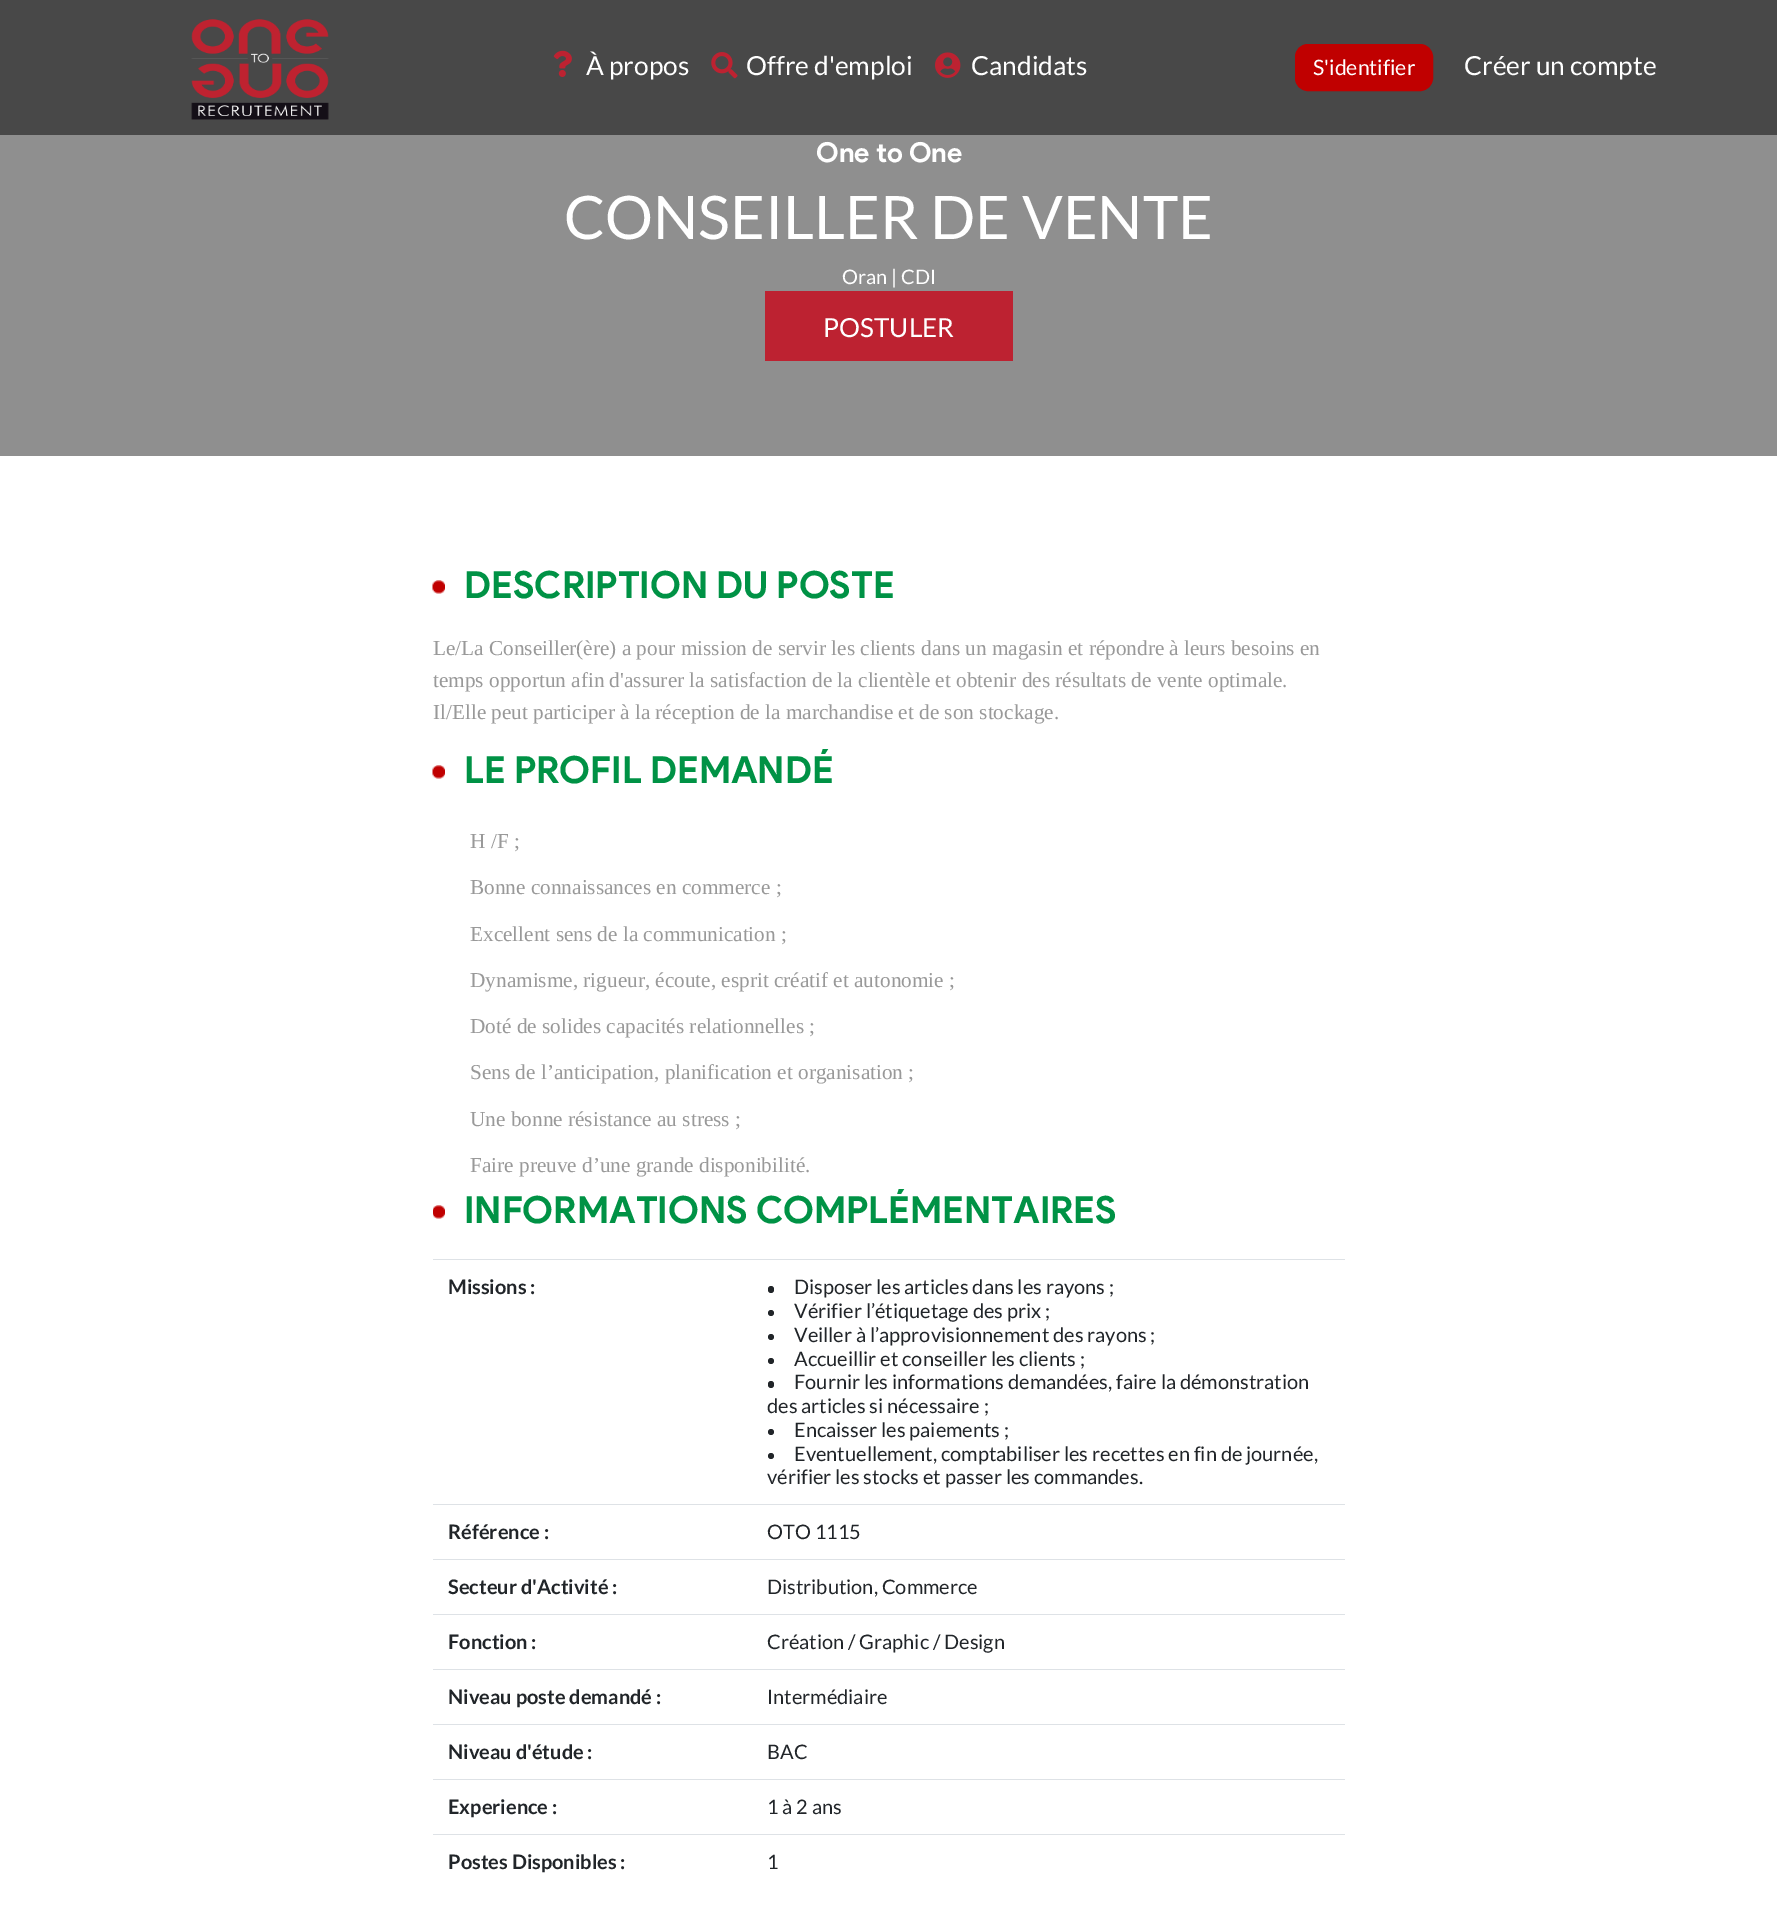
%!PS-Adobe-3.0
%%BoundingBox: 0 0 1777 1905
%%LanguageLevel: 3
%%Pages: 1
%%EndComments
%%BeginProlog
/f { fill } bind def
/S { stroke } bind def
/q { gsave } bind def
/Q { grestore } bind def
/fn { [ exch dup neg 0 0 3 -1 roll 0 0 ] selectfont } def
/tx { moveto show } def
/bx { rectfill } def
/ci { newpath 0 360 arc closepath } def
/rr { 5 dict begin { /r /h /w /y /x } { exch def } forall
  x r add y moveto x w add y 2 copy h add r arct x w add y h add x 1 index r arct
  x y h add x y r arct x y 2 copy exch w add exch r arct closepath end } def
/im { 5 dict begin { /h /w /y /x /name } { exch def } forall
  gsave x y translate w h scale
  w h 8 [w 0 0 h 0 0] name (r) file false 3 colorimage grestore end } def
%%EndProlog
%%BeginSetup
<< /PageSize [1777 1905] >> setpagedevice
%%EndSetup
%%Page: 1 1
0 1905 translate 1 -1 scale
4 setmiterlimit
1 setgray
0 0 1777 1905 bx
0.282 setgray
0 0 1777 135 bx
(image0.raw) 191 19 138 101 im
(image1.raw) 553 50 19 27 im
/Lato-Regular 26.25 fn
1 setgray
(À propos) 586 75 tx
(image2.raw) 711 52 27 27 im
(Offre d'emploi) 746 75 tx
(image3.raw) 935 52 26 26 im
(Candidats) 971 75 tx
0.753 0 0 setrgbcolor
1295.5 44.5 137 46 12.5 rr q f Q
S
/Lato-Regular 21.25 fn
1 setgray
(S'identifier) 1313 75 tx
/Lato-Regular 26.25 fn
(Créer un compte) 1464 75 tx
0.561 setgray
0 135 1777 321 bx
/ProductSans-Bold 27.5 fn
1 setgray
(One to One) 816 162 tx
/Lato-Regular 60 fn
(CONSEILLER DE VENTE) 564 239 tx
/Lato-Regular 20 fn
(Oran | CDI) 842 284 tx
0.741 0.133 0.192 setrgbcolor
765 291 248 70 bx
/Lato-Regular 26.25 fn
1 setgray
(POSTULER) 823 337 tx
(image4.raw) 432 580 13 14 im
/ProductSans-Bold 37.5 fn
0 0.573 0.271 setrgbcolor
(DESCRIPTION DU POSTE) 464 598 tx
/LiberationSerif-Regular 21.25 fn
0.6 setgray
(Le/La Conseiller\(ère\) a pour mission de servir les clients dans un magasin et répondre à leurs besoins en) 433 655 tx
(temps opportun afin d'assurer la satisfaction de la clientèle et obtenir des résultats de vente optimale.) 433 687 tx
(Il/Elle peut participer à la réception de la marchandise et de son stockage.) 433 719 tx
(image5.raw) 432 765 13 14 im
/ProductSans-Bold 37.5 fn
0 0.573 0.271 setrgbcolor
(LE PROFIL DEMANDÉ) 464 783 tx
/LiberationSerif-Regular 21.25 fn
0.6 setgray
(H /F ;) 470 848 tx
(Bonne connaissances en commerce ;) 470 894 tx
(Excellent sens de la communication ;) 470 941 tx
(Dynamisme, rigueur, écoute, esprit créatif et autonomie ;) 470 987 tx
(Doté de solides capacités relationnelles ;) 470 1033 tx
(Sens de l’anticipation, planification et organisation ;) 470 1079 tx
(Une bonne résistance au stress ;) 470 1126 tx
(Faire preuve d’une grande disponibilité.) 470 1172 tx
(image6.raw) 433 1205 12 14 im
/ProductSans-Bold 37.5 fn
0 0.573 0.271 setrgbcolor
(INFORMATIONS COMPLÉMENTAIRES) 464 1223 tx
/Lato-Bold 20 fn
0.129 0.145 0.161 setrgbcolor
(Missions :) 448 1294 tx
0.871 0.886 0.902 setrgbcolor
433 1259 912 1 bx
0.129 0.145 0.161 setrgbcolor
768 1286 6 7 3 rr f
/Lato-Regular 20 fn
(Disposer les articles dans les rayons ;) 794 1294 tx
771 1313 3 ci f
(Vérifier l’étiquetage des prix ;) 794 1318 tx
771 1337 3 ci f
(Veiller à l’approvisionnement des rayons ;) 794 1342 tx
771 1361 3 ci f
(Accueillir et conseiller les clients ;) 794 1366 tx
768 1381 6 7 3 rr f
(Fournir les informations demandées, faire la démonstration) 794 1389 tx
(des articles si nécessaire ;) 767 1413 tx
771 1432 3 ci f
(Encaisser les paiements ;) 794 1437 tx
771 1456 3 ci f
(Eventuellement, comptabiliser les recettes en fin de journée,) 794 1461 tx
(vérifier les stocks et passer les commandes.) 767 1484 tx
/Lato-Bold 20 fn
(Référence :) 448 1539 tx
0.871 0.886 0.902 setrgbcolor
433 1504 912 1 bx
/Lato-Regular 20 fn
0.129 0.145 0.161 setrgbcolor
(OTO 1115) 767 1539 tx
/Lato-Bold 20 fn
(Secteur d'Activité :) 448 1594 tx
0.871 0.886 0.902 setrgbcolor
433 1559 912 1 bx
/Lato-Regular 20 fn
0.129 0.145 0.161 setrgbcolor
(Distribution, Commerce) 767 1594 tx
/Lato-Bold 20 fn
(Fonction :) 448 1649 tx
0.871 0.886 0.902 setrgbcolor
433 1614 912 1 bx
/Lato-Regular 20 fn
0.129 0.145 0.161 setrgbcolor
(Création / Graphic / Design) 767 1649 tx
/Lato-Bold 20 fn
(Niveau poste demandé :) 448 1704 tx
0.871 0.886 0.902 setrgbcolor
433 1669 912 1 bx
/Lato-Regular 20 fn
0.129 0.145 0.161 setrgbcolor
(Intermédiaire) 767 1704 tx
/Lato-Bold 20 fn
(Niveau d'étude :) 448 1759 tx
0.871 0.886 0.902 setrgbcolor
433 1724 912 1 bx
/Lato-Regular 20 fn
0.129 0.145 0.161 setrgbcolor
(BAC) 767 1759 tx
/Lato-Bold 20 fn
(Experience :) 448 1814 tx
0.871 0.886 0.902 setrgbcolor
433 1779 912 1 bx
/Lato-Regular 20 fn
0.129 0.145 0.161 setrgbcolor
(1 à 2 ans) 767 1814 tx
/Lato-Bold 20 fn
(Postes Disponibles :) 448 1869 tx
0.871 0.886 0.902 setrgbcolor
433 1834 912 1 bx
/Lato-Regular 20 fn
0.129 0.145 0.161 setrgbcolor
(1) 767 1869 tx
showpage
%%EOF
